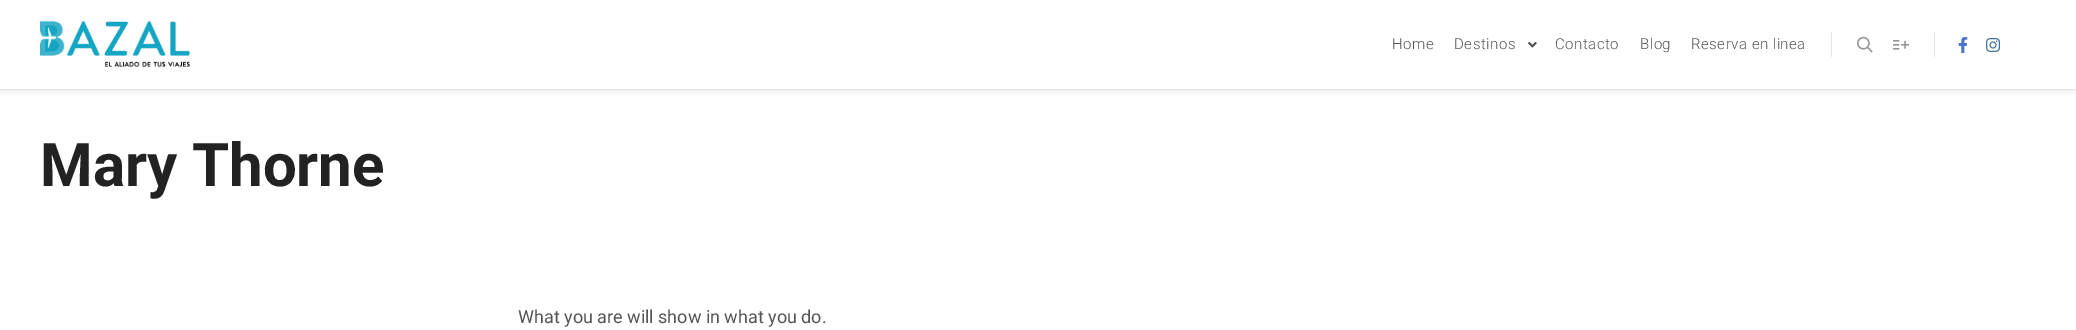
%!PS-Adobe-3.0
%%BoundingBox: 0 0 2076 330
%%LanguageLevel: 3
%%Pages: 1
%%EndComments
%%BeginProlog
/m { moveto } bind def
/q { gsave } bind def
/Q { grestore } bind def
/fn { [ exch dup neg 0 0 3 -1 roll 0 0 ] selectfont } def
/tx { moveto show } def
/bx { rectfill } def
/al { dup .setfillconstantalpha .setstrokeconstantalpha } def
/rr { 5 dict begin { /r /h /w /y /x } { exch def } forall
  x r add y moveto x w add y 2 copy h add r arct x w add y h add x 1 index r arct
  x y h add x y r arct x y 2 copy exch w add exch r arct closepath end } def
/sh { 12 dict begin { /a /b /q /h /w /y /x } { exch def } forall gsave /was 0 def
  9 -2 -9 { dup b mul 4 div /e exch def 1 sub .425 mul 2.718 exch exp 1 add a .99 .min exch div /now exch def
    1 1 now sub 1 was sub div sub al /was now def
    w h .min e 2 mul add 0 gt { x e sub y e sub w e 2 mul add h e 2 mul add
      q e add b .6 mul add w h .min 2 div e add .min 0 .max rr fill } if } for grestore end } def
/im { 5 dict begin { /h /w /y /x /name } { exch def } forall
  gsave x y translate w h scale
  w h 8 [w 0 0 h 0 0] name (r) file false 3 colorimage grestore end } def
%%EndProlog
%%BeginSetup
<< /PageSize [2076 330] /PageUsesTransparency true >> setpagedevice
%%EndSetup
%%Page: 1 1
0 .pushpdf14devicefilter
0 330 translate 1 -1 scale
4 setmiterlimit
1 setgray
0 0 2076 330 bx
q
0 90 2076 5 rectclip
0 setgray
0 0 2076 90 0 6 0.09 sh
Q
0.898 setgray
0 89 2076 1 bx
(image0.raw) 40 20 150 47 im
/Roboto-Light 15 fn
0.333 setgray
1392 49 m 0.5 0 (Home) ashow
1454 49 m 0.5 0 (Destinos) ashow
(image1.raw) 1528 42 9 6 im
1555 49 m 0.5 0 (Contacto) ashow
1640 49 m 0.5 0 (Blog) ashow
1691 49 m 0.5 0 (Reserva en linea) ashow
0.898 setgray
1831 32 1 25 bx
(image2.raw) 1857 36 16 17 im
(image3.raw) 1893 40 16 10 im
1934 32 1 25 bx
(image4.raw) 1958 37 10 16 im
(image5.raw) 1986 38 14 14 im
/Roboto-Bold 60 fn
0.133 setgray
(Mary Thorne) 40 186 tx
/Roboto-Regular 18 fn
0.333 setgray
(What you are will show in what you do.) 518 323 tx
.poppdf14devicefilter showpage
%%EOF
